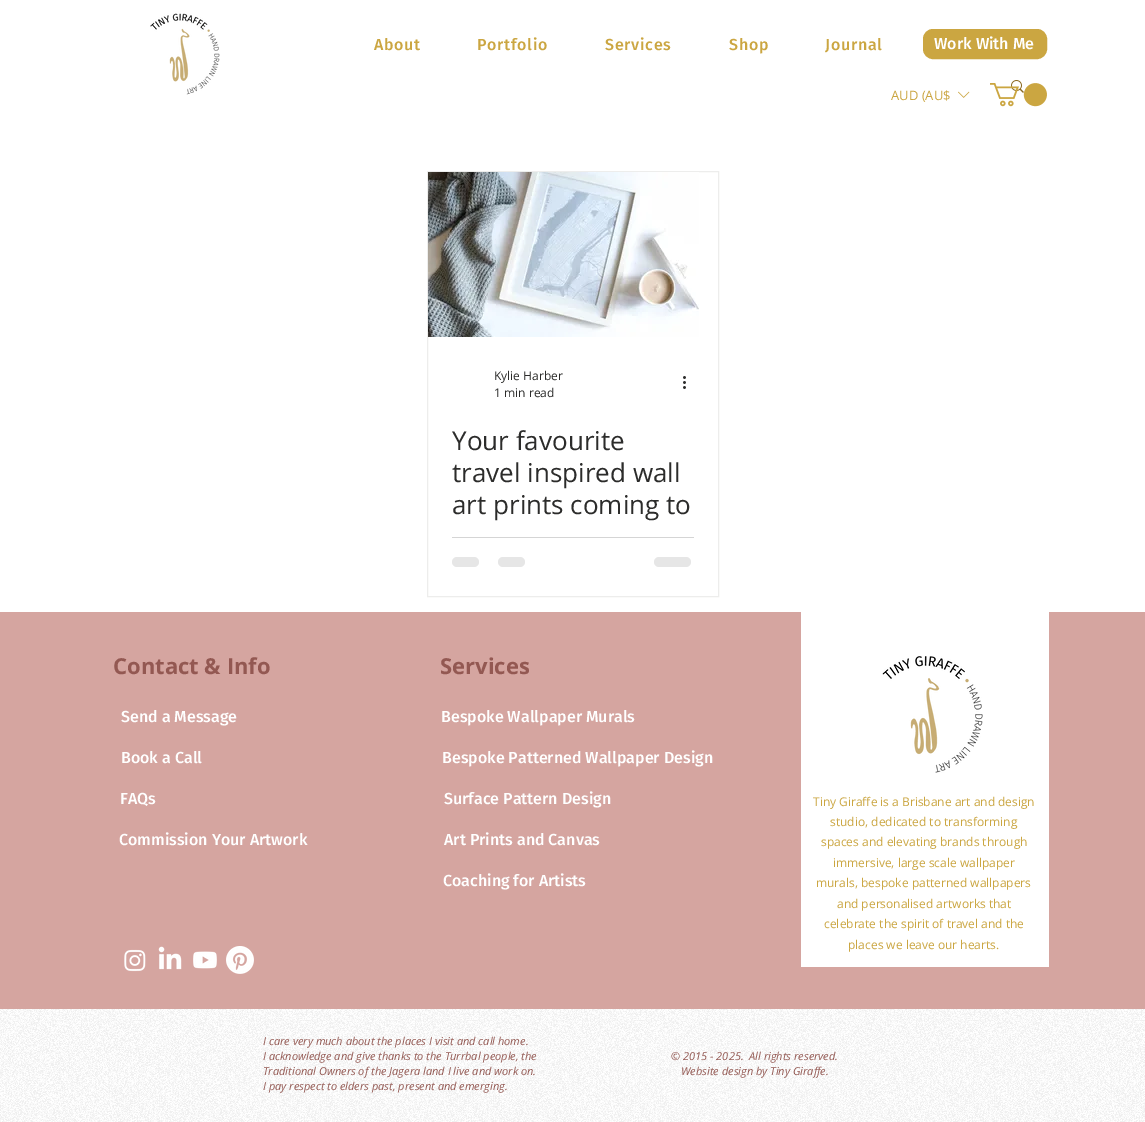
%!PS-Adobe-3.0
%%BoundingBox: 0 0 1145 1122
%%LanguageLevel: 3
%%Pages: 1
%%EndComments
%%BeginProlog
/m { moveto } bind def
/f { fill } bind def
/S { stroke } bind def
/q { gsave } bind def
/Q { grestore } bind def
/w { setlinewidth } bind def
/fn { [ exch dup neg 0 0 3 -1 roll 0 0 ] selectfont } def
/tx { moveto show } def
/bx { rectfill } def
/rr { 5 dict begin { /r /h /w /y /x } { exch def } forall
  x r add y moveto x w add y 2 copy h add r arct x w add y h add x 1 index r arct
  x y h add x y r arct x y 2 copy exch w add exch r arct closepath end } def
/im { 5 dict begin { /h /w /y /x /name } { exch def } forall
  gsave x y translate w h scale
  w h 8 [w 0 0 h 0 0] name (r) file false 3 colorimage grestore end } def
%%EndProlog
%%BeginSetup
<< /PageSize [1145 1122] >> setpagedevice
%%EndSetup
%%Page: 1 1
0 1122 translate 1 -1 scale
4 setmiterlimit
1 setgray
0 0 1145 1122 bx
(image0.raw) 150 13 70 82 im
/FiraSans-Medium 16 fn
0.796 0.651 0.255 setrgbcolor
374 50 m 0.75 0 (About) ashow
477 50 m 0.75 0 (Portfolio) ashow
605 50 m 0.75 0 (Services) ashow
729 50 m 0.75 0 (Shop) ashow
825 50 m 0.75 0 (Journal) ashow
924 30 122 28 9 rr q f Q
2 w
S
1 setgray
(Work With Me) 934 49 tx
/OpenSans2-Regular 13 fn
0.796 0.651 0.255 setrgbcolor
(AUD \(AU$) 891 100 tx
(image1.raw) 958 91 12 7 im
(image3.raw) 1011 80 13 13 im
(image2.raw) 990 83 57 24 im
0.929 0.929 0.925 setrgbcolor
1 w
427.5 171.5 291 425 rectstroke
(image4.raw) 428 172 271 165 im
/OpenSans-Regular 12 fn
0.173 0.173 0.169 setrgbcolor
(Kylie Harber) 494 380 tx
(1 min read) 494 397 tx
(image5.raw) 683 376 3 13 im
/OpenSans-Regular 26 fn
(Your favourite) 452 450 tx
(travel inspired wall) 452 482 tx
(art prints coming to) 452 514 tx
0.835 setgray
452 537 242 1 bx
0.902 setgray
452 557 27 10 5 rr f
498 557 27 10 5 rr f
654 557 37 10 5 rr f
0.835 0.647 0.627 setrgbcolor
0 612 1145 397 bx
1 setgray
801 612 248 355 bx
/OpenSans-Bold 22 fn
0.576 0.345 0.322 setrgbcolor
(Contact & Info) 113 674 tx
(Services) 440 674 tx
(image6.raw) 882 656 101 117 im
/FiraSans-Medium 16 fn
1 setgray
(Send a Message) 121 722 tx
(Bespoke Wallpaper Murals) 441 722 tx
(Book a Call) 121 763 tx
(Bespoke Patterned Wallpaper Design) 442 763 tx
(FAQs) 120 804 tx
(Surface Pattern Design) 444 804 tx
/OpenSans2-Regular 12 fn
0.796 0.651 0.255 setrgbcolor
(Tiny Giraffe is a Brisbane art and design) 813 806 tx
(studio, dedicated to transforming) 830 826 tx
(spaces and elevating brands through) 821 846 tx
(immersive, large scale wallpaper) 833 867 tx
(murals, bespoke patterned wallpapers) 816 887 tx
(and personalised artworks that) 837 908 tx
(celebrate the spirit of travel and the) 824 928 tx
(places we leave our hearts.) 848 949 tx
/FiraSans-Medium 16 fn
1 setgray
(Commission Your Artwork) 119 845 tx
(Art Prints and Canvas) 444 845 tx
(Coaching for Artists) 443 886 tx
(image7.raw) 124 949 22 23 im
(image8.raw) 158 946 24 24 im
(image9.raw) 193 951 24 18 im
(image10.raw) 226 946 28 28 im
(image11.raw) 0 1009 1145 113 im
/OpenSans-Italic 11 fn
0.576 0.345 0.322 setrgbcolor
(I care very much about the places I visit and call home.) 263 1045 tx
(I acknowledge and give thanks to the Turrbal people, the) 263 1060 tx
(Traditional Owners of the Jagera land I live and work on.) 263 1075 tx
(I pay respect to elders past, present and emerging.) 263 1090 tx
(© 2015 - 2025.  All rights reserved.) 671 1060 tx
(Website design by Tiny Giraffe.) 681 1075 tx
showpage
%%EOF
